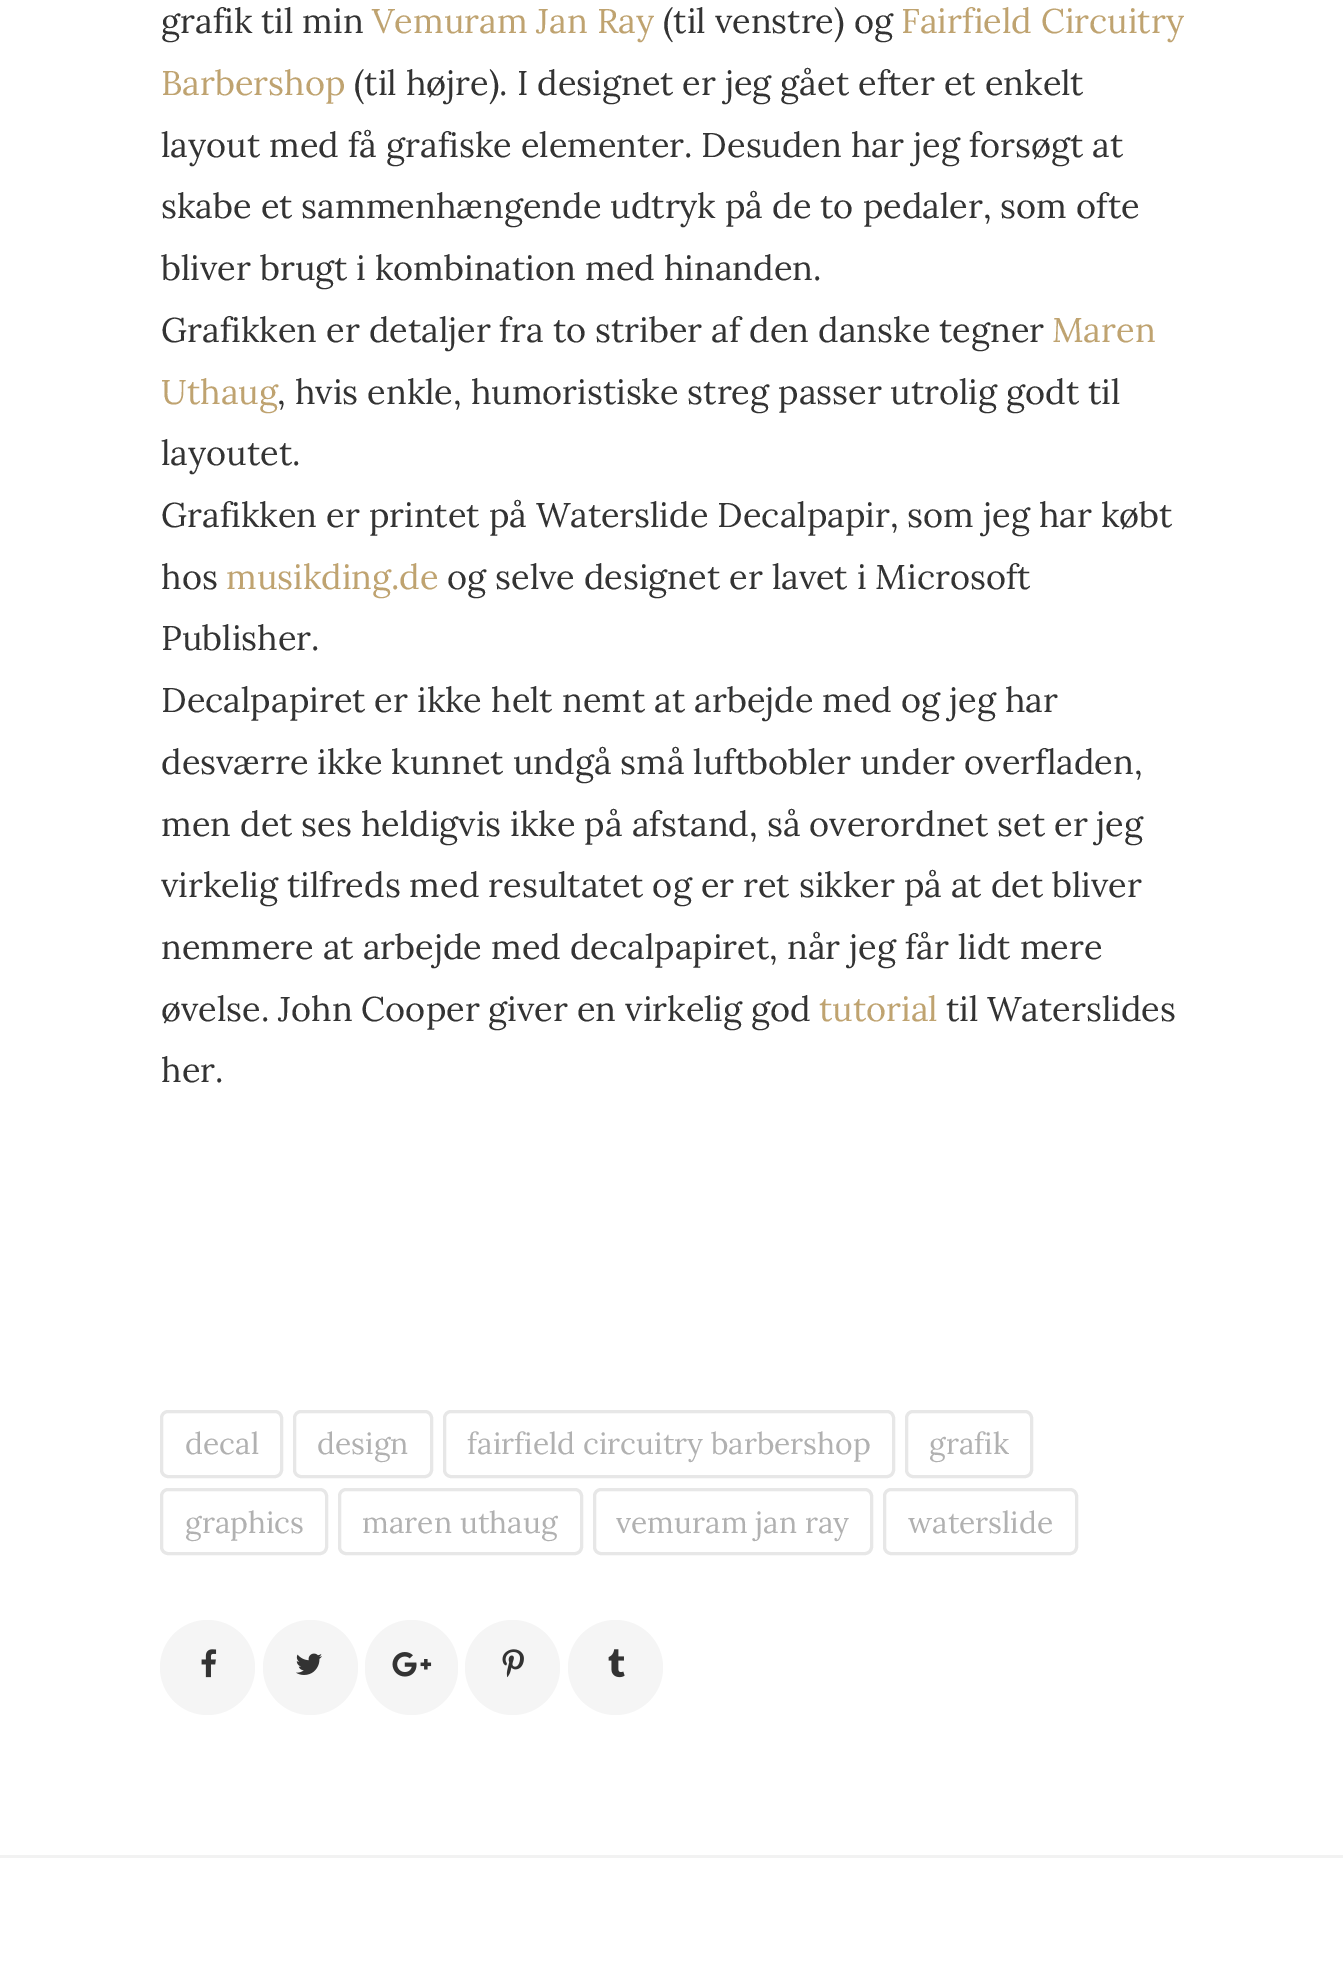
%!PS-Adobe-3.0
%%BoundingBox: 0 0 1343 1976
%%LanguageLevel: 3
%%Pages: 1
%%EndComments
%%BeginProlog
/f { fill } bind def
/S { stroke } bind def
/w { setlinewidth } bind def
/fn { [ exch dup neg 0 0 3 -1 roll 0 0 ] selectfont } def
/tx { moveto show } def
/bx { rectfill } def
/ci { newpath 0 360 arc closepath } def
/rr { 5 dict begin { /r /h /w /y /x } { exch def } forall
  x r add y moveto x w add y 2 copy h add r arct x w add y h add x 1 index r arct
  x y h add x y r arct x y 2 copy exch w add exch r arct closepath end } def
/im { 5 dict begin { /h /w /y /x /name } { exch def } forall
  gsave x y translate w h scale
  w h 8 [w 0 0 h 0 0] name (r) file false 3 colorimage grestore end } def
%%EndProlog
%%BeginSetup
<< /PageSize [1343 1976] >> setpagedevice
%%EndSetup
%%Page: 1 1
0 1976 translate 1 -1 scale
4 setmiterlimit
1 setgray
0 0 1343 1976 bx
0.949 setgray
0 1855 1343 3 bx
/Lora-Regular 34.3 fn
0.2 setgray
(grafik til min) 161 33 tx
0.749 0.639 0.439 setrgbcolor
(Vemuram Jan Ray) 372 33 tx
0.2 setgray
(\(til venstre\) og) 663 33 tx
0.749 0.639 0.439 setrgbcolor
(Fairfield Circuitry) 901 33 tx
(Barbershop) 161 95 tx
0.2 setgray
(\(til højre\). I designet er jeg gået efter et enkelt) 354 95 tx
(layout med få grafiske elementer. Desuden har jeg forsøgt at) 161 157 tx
(skabe et sammenhængende udtryk på de to pedaler, som ofte) 161 218 tx
(bliver brugt i kombination med hinanden.) 161 280 tx
(Grafikken er detaljer fra to striber af den danske tegner) 161 342 tx
0.749 0.639 0.439 setrgbcolor
(Maren) 1052 342 tx
(Uthaug) 161 404 tx
0.2 setgray
(, hvis enkle, humoristiske streg passer utrolig godt til) 277 404 tx
(layoutet.) 161 465 tx
(Grafikken er printet på Waterslide Decalpapir, som jeg har købt) 161 527 tx
(hos) 161 589 tx
0.749 0.639 0.439 setrgbcolor
(musikding.de) 226 589 tx
0.2 setgray
(og selve designet er lavet i Microsoft) 447 589 tx
(Publisher.) 161 650 tx
(Decalpapiret er ikke helt nemt at arbejde med og jeg har) 161 712 tx
(desværre ikke kunnet undgå små luftbobler under overfladen,) 161 774 tx
(men det ses heldigvis ikke på afstand, så overordnet set er jeg) 161 836 tx
(virkelig tilfreds med resultatet og er ret sikker på at det bliver) 161 897 tx
(nemmere at arbejde med decalpapiret, når jeg får lidt mere) 161 959 tx
(øvelse. John Cooper giver en virkelig god) 161 1021 tx
0.749 0.639 0.439 setrgbcolor
(tutorial) 819 1021 tx
0.2 setgray
(til Waterslides) 946 1021 tx
(her.) 161 1082 tx
0.906 setgray
3 w
161.5 1411.5 120 65 6.5 rr S
/Lora-Regular 30 fn
0.694 setgray
(decal) 185 1454 tx
0.906 setgray
294.5 1411.5 137 65 6.5 rr S
0.694 setgray
(design) 317 1454 tx
0.906 setgray
444.5 1411.5 449 65 6.5 rr S
0.694 setgray
(fairfield circuitry barbershop) 467 1454 tx
0.906 setgray
906.5 1411.5 125 65 6.5 rr S
0.694 setgray
(grafik) 929 1454 tx
0.906 setgray
161.5 1489.5 165 64 6.5 rr S
0.694 setgray
(graphics) 185 1533 tx
0.906 setgray
339.5 1489.5 242 64 6.5 rr S
0.694 setgray
(maren uthaug) 362 1533 tx
0.906 setgray
594.5 1489.5 277 64 6.5 rr S
0.694 setgray
(vemuram jan ray) 616 1533 tx
0.906 setgray
884.5 1489.5 192 64 6.5 rr S
0.694 setgray
(waterslide) 908 1533 tx
0.961 setgray
207.5 1667.5 47.5 ci f
(image0.raw) 201 1649 16 29 im
310.5 1667.5 47.5 ci f
(image1.raw) 296 1653 26 22 im
365 1620 93 95 46.5 rr f
(image2.raw) 392 1652 40 25 im
512.5 1667.5 47.5 ci f
(image3.raw) 502 1649 22 29 im
615.5 1667.5 47.5 ci f
(image4.raw) 608 1649 17 29 im
showpage
%%EOF
